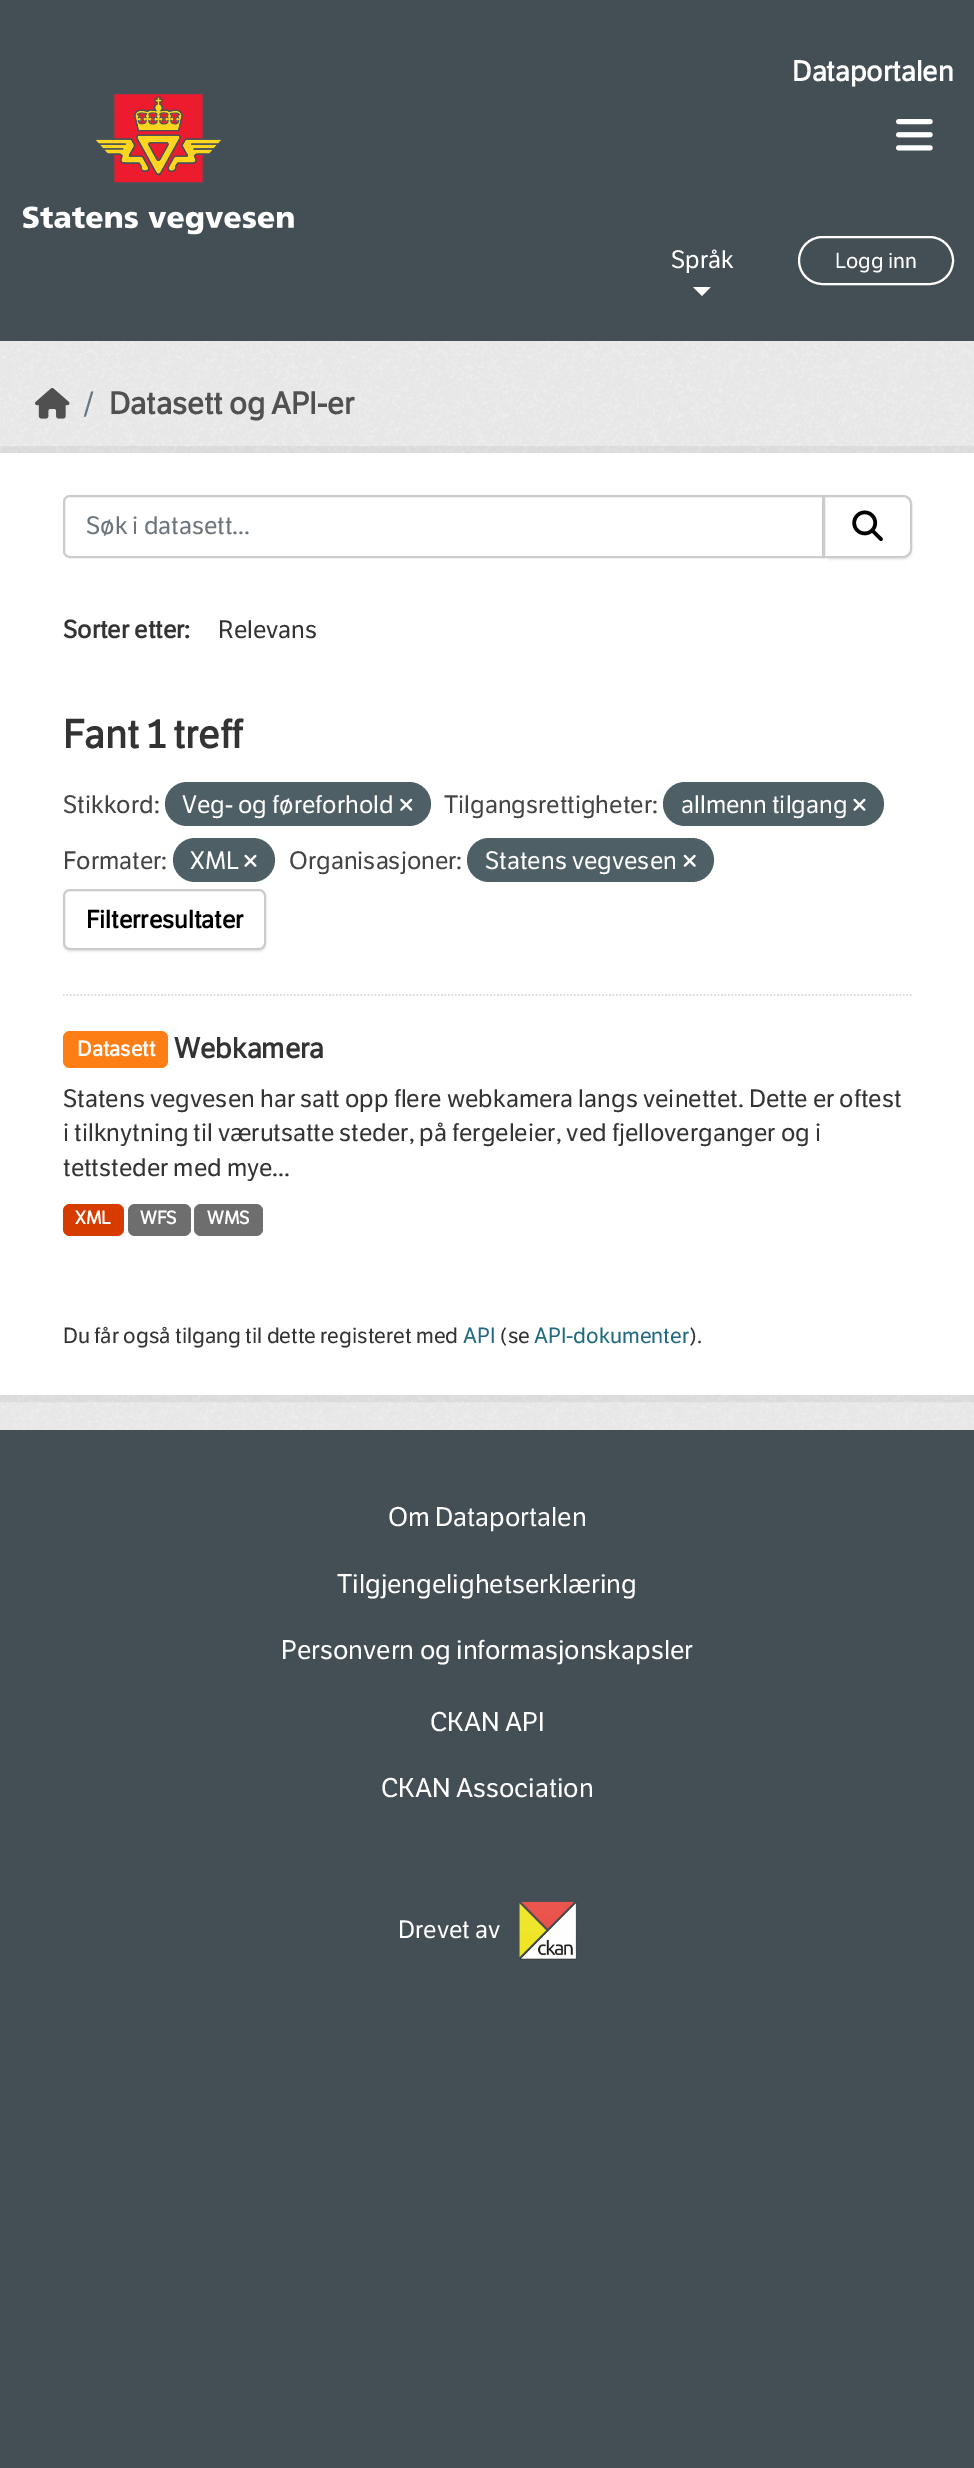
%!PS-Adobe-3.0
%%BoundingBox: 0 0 974 2468
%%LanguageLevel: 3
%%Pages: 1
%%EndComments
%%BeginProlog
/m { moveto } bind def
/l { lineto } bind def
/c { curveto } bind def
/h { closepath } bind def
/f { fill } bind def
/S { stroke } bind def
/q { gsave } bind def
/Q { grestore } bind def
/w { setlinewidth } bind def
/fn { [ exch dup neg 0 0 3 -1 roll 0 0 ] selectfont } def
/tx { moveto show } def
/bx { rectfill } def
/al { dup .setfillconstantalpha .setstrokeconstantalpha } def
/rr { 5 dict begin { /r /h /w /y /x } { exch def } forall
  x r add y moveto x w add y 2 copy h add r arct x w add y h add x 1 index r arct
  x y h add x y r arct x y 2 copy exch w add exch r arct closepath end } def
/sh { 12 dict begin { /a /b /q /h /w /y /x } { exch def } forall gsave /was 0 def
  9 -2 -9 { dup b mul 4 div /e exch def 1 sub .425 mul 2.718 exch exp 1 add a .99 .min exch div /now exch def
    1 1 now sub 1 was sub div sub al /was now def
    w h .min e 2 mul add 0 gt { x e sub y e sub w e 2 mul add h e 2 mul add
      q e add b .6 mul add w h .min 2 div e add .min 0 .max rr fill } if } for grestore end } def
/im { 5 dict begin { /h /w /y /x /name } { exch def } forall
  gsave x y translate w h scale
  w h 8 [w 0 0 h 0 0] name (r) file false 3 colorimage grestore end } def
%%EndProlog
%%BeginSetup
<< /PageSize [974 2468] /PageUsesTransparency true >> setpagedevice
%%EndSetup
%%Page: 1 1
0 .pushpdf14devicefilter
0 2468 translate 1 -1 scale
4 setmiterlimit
0.267 0.31 0.333 setrgbcolor
0 0 974 2468 bx
/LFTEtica-Bold 28 fn
1 setgray
(Dataportalen) 792 81 tx
(image0.raw) 23 93 271 142 im
(image1.raw) 896 119 37 32 im
/LFTEtica-Regular 24.5 fn
(Språk) 671 268 tx
693 287 m 710.5 287 l 702 296 l h f
2 w
799 237 154 47 23.5 rr S
/LFTEtica-Regular 21 fn
(Logg inn) 835 268 tx
0.933 setgray
0 341 974 1089 bx
(image2.raw) 0 341 974 1089 im
(image3.raw) 35 388 35 31 im
/LFTEtica-Regular 30.5 fn
0.424 0.459 0.49 setrgbcolor
(/) 83 414 tx
/LFTEtica-Bold 30.5 fn
0.314 setgray
(Datasett og API-er) 109 414 tx
0.05 al
0 setgray
7 w
-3.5 449.5 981 949 rectstroke
1 al
1 setgray
0 453 974 942 bx
0.867 setgray
1.8 w
[1.75 1.75] 0 setdash
63 995 m 912 995 l S
0.8 setgray
2 w
[] 0 setdash
70 496 m 823 496 l 823 557 l 70 557 l 66.5 557 64 554.5 64 551 c 64 502 l 64 498.5 66.5 496 70 496 c h S
/LFTEtica-Regular 24.5 fn
0.424 0.459 0.49 setrgbcolor
(Søk i datasett...) 86 534 tx
0 setgray
823 497 89 63 9 1 0.07 sh
1 setgray
824 496 m 903 496 l 907.5 496 911 499.5 911 504 c 911 549 l 911 553.5 907.5 557 903 557 c 824 557 l h q f Q
0.8 setgray
S
(image4.raw) 852 510 31 31 im
/LFTEtica-Bold 24.5 fn
0.2 setgray
(Sorter etter:) 63 638 tx
/LFTEtica-Regular 24.5 fn
(Relevans) 218 638 tx
/LFTEtica-Bold 39 fn
(Fant 1 treff) 63 748 tx
/LFTEtica-Regular 24.5 fn
0.267 setgray
(Stikkord:) 63 813 tx
0.306 0.373 0.396 setrgbcolor
165 782 266 44 22 rr f
1 setgray
(Veg- og føreforhold) 182 813 tx
(image5.raw) 400 798 13 13 im
0.267 setgray
(Tilgangsrettigheter:) 444 813 tx
0.306 0.373 0.396 setrgbcolor
663 782 221 44 22 rr f
1 setgray
(allmenn tilgang) 681 813 tx
(image6.raw) 853 798 13 13 im
0.267 setgray
(Formater:) 63 869 tx
0.306 0.373 0.396 setrgbcolor
173 838 102 44 22 rr f
1 setgray
(XML) 190 869 tx
(image6.raw) 244 854 13 13 im
0.267 setgray
(Organisasjoner:) 289 869 tx
0.306 0.373 0.396 setrgbcolor
467 838 247 44 22 rr f
1 setgray
(Statens vegvesen) 485 869 tx
(image7.raw) 683 854 13 13 im
0 setgray
63 891 203 61 7 1 0.07 sh
1 setgray
64 890 201 59 6 rr q f Q
0.8 setgray
S
/LFTEtica-Bold 24.5 fn
0 setgray
(Filterresultater) 86 928 tx
0.992 0.494 0.078 setrgbcolor
63 1031 105 37 7 rr f
/LFTEtica-Bold 21 fn
1 setgray
(Datasett) 77 1056 tx
/LFTEtica-Bold 28 fn
0.2 setgray
(Webkamera) 174 1058 tx
/LFTEtica-Regular 24.5 fn
(Statens vegvesen har satt opp flere webkamera langs veinettet. Dette er oftest) 63 1107 tx
(i tilknytning til værutsatte steder, på fergeleier, ved fjelloverganger og i) 63 1141 tx
(tettsteder med mye...) 63 1176 tx
0.839 0.231 0 setrgbcolor
63 1204 61 32 7 rr f
/LFTEtica-Bold 18 fn
1 setgray
(XML) 75 1224 tx
0.431 setgray
128 1204 63 32 7 rr f
1 setgray
(WFS) 140 1224 tx
0.431 setgray
194 1204 69 32 7 rr f
1 setgray
(WMS) 207 1224 tx
/LFTEtica-Regular 21.4 fn
0.2 setgray
(Du får også tilgang til dette registeret med) 63 1343 tx
0.125 0.42 0.51 setrgbcolor
(API) 463 1343 tx
0.2 setgray
(\(se) 500 1343 tx
0.125 0.42 0.51 setrgbcolor
(API-dokumenter) 534 1343 tx
0.2 setgray
(\).) 689 1343 tx
/LFTEtica-Regular 26.25 fn
1 setgray
(Om Dataportalen) 388 1526 tx
(Tilgjengelighetserklæring) 337 1593 tx
(Personvern og informasjonskapsler) 281 1659 tx
(CKAN API) 430 1731 tx
(CKAN Association) 381 1797 tx
/LFTEtica-Regular 24.5 fn
(Drevet av) 398 1938 tx
(image8.raw) 519 1901 58 59 im
.poppdf14devicefilter showpage
%%EOF
